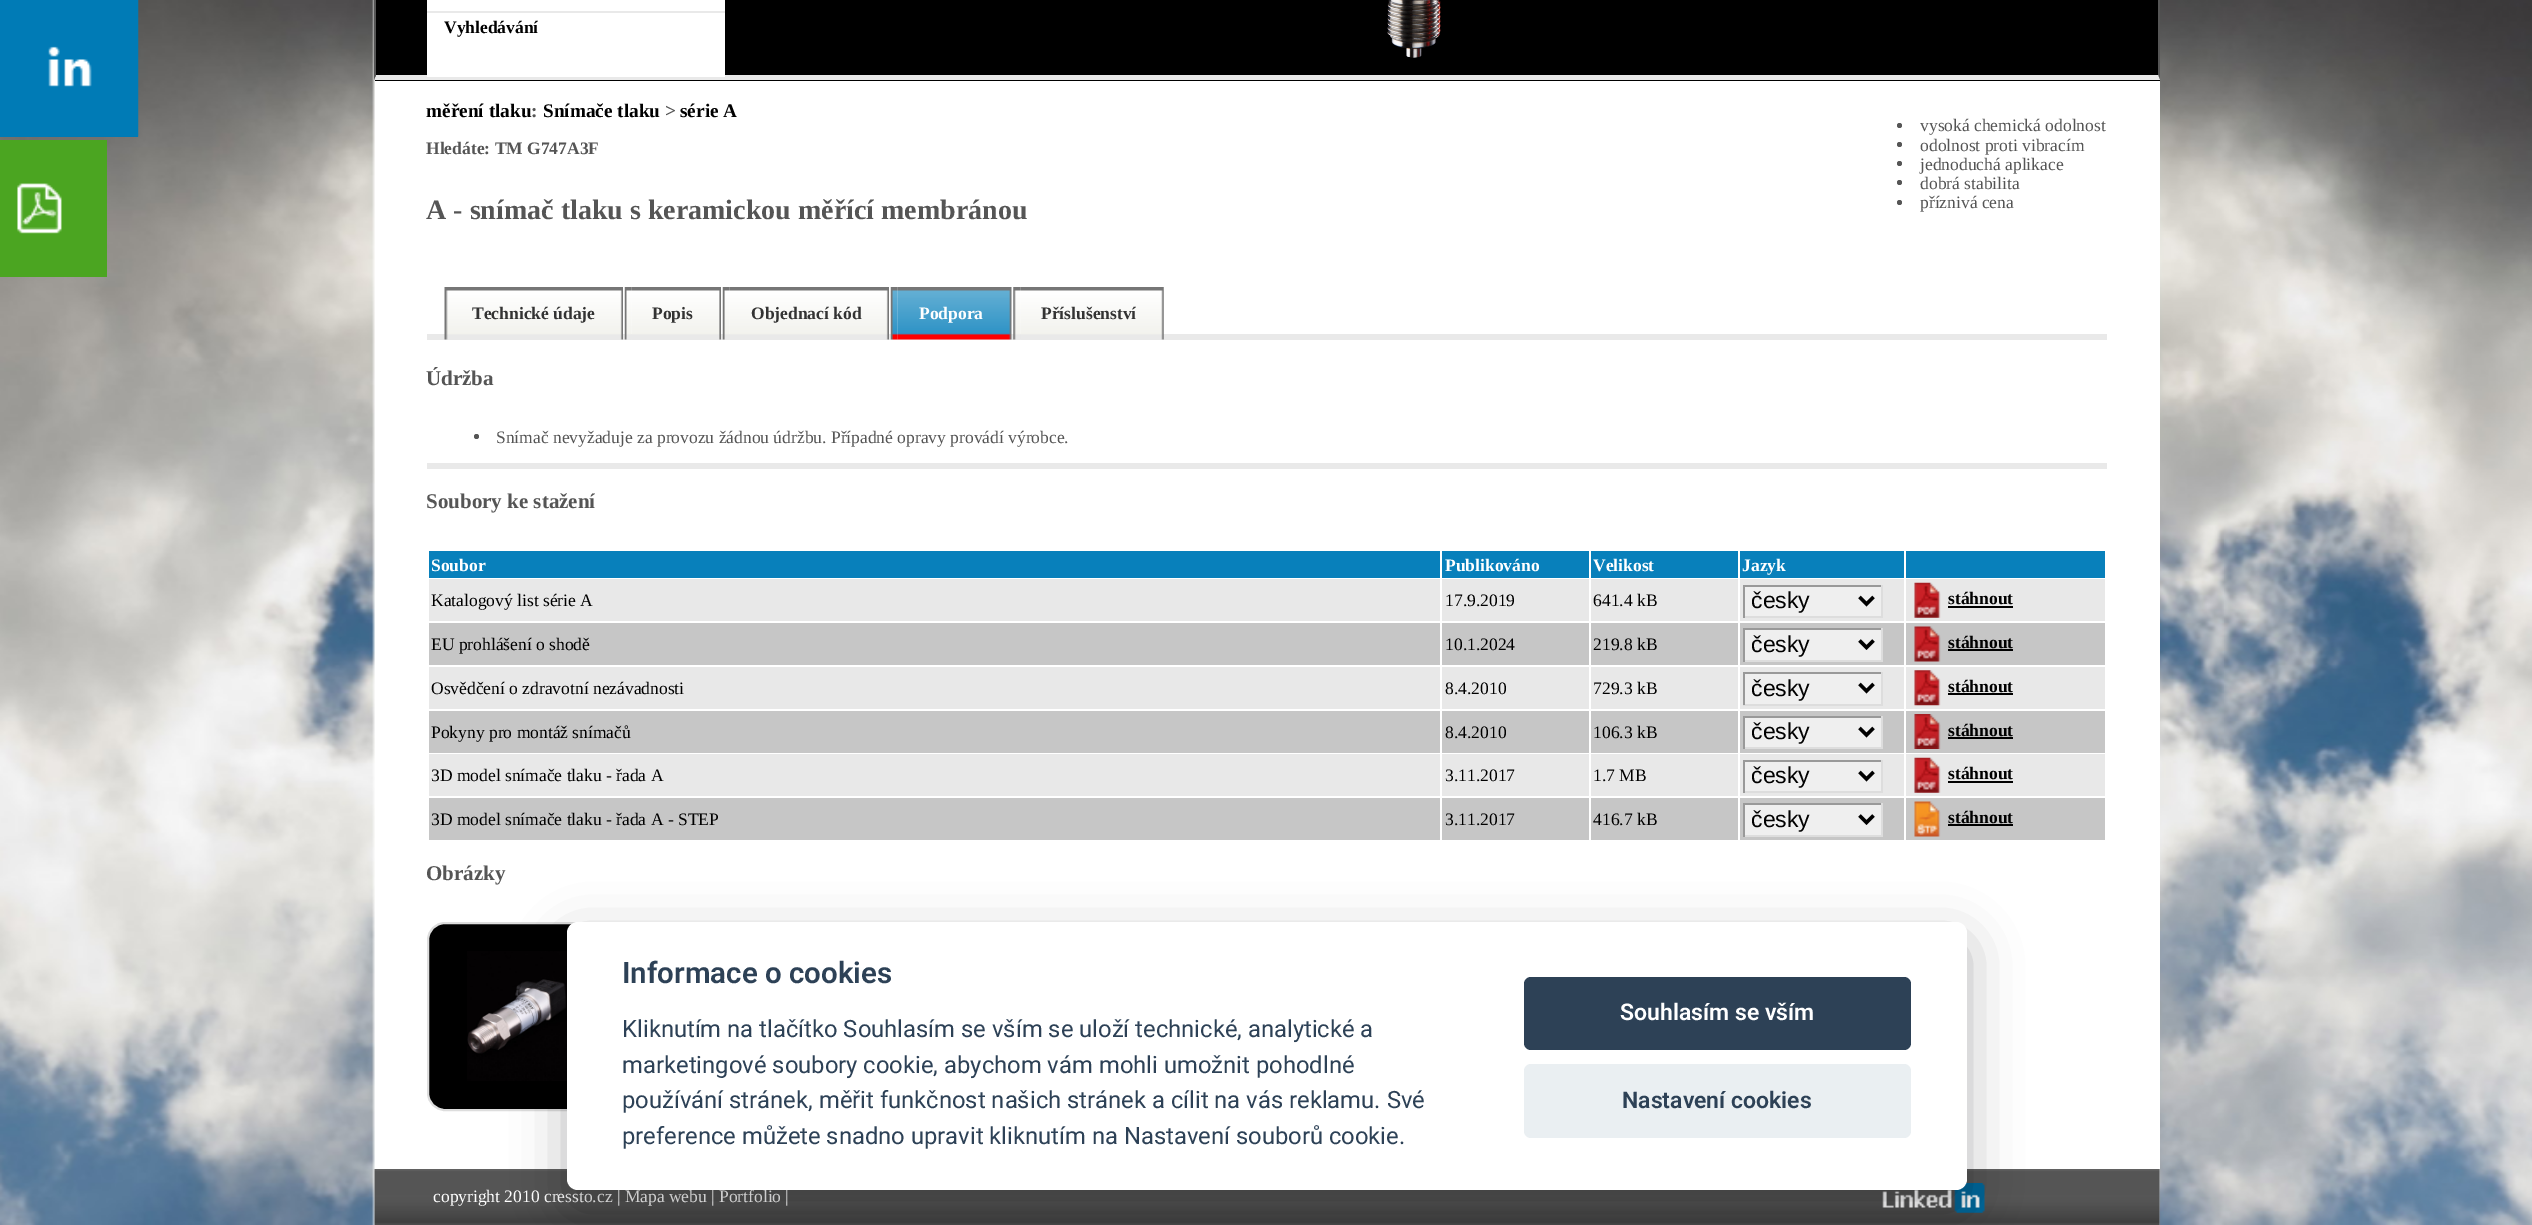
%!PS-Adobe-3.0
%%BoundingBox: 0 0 2532 1225
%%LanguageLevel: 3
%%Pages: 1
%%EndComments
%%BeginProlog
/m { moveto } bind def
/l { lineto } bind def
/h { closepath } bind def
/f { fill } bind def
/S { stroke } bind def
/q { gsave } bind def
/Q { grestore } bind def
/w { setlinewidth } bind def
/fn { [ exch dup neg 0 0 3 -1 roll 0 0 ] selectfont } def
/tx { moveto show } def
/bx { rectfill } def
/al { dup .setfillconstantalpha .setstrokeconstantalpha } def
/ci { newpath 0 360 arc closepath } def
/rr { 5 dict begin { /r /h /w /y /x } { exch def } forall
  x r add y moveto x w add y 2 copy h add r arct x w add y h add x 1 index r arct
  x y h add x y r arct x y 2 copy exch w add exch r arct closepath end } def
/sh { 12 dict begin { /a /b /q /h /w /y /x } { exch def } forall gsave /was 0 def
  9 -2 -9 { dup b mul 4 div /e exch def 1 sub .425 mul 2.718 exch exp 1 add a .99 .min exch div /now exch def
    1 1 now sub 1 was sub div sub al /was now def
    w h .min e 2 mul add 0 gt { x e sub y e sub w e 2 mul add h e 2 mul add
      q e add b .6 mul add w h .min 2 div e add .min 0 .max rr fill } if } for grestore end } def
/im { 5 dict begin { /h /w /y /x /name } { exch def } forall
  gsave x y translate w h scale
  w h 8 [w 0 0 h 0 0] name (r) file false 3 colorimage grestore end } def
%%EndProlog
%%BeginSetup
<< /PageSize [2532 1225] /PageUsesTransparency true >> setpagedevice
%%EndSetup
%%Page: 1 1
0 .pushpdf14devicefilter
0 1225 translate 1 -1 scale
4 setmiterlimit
1 setgray
0 0 2532 1225 bx
(image0.raw) 0 0 2532 1225 im
0 0.482 0.714 setrgbcolor
0 0 138 137 bx
(image1.raw) 48 0 91 137 im
0.294 0.647 0.129 setrgbcolor
0 140 107 137 bx
(image2.raw) 17 183 45 51 im
1 setgray
375 81 1785 1088 bx
0 setgray
375 0 1785 81 bx
0.333 setgray
2160 -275 m 2160 80 l 2158 75 l 2158 -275 l h f
0.914 setgray
2160 80 m 374 80 l 376 75 l 2158 75 l h f
0.333 setgray
374 80 m 374 -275 l 376 -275 l 376 75 l h f
(image3.raw) 1387 0 54 58 im
1 setgray
427 0 298 77 bx
0.914 setgray
427 11 298 2 bx
/LiberationSerif-Bold 17.5 fn
0 setgray
(Vyhledávání) 444 33 tx
/LiberationSerif-Bold 19.25 fn
(měření tlaku) 426 117 tx
0.333 setgray
(:) 531 117 tx
0 setgray
(Snímače tlaku) 543 117 tx
0.333 setgray
(>) 665 117 tx
0 setgray
(série A) 680 117 tx
/LiberationSerif-Bold 17.5 fn
0.333 setgray
(Hledáte: TM G747A3F) 426 154 tx
1899.5 125.5 2.5 ci f
/LiberationSerif-Regular 17.5 fn
(vysoká chemická odolnost) 1920 131 tx
1899.5 144.5 2.5 ci f
(odolnost proti vibracím) 1920 151 tx
1899.5 163.5 2.5 ci f
(jednoduchá aplikace) 1920 170 tx
1899.5 182.5 2.5 ci f
(dobrá stabilita) 1920 189 tx
1899.5 202.5 2.5 ci f
(příznivá cena) 1920 208 tx
/LiberationSerif-Bold 28 fn
(A - snímač tlaku s keramickou měřící membránou) 426 219 tx
0.914 setgray
427 334 1680 6 bx
(image4.raw) 444 287 10 53 im
(image5.raw) 453 287 170 53 im
/LiberationSerif-Bold 17.5 fn
0.2 setgray
(Technické údaje) 472 319 tx
(image6.raw) 624 287 8 53 im
(image7.raw) 631 287 90 53 im
(Popis) 652 319 tx
(image8.raw) 722 287 8 53 im
(image9.raw) 729 287 160 53 im
(Objednací kód) 751 319 tx
(image10.raw) 890 287 8 53 im
(image11.raw) 897 287 115 53 im
1 setgray
(Podpora) 919 319 tx
(image12.raw) 1013 287 8 53 im
(image13.raw) 1020 287 144 53 im
0.2 setgray
(Příslušenství) 1041 319 tx
/LiberationSerif-Bold 21 fn
0.333 setgray
(Údržba) 426 385 tx
476.5 436.5 2.5 ci f
/LiberationSerif-Regular 17.5 fn
(Snímač nevyžaduje za provozu žádnou údržbu. Případné opravy provádí výrobce.) 496 443 tx
0.914 setgray
427 463 1680 6 bx
/LiberationSerif-Bold 21 fn
0.333 setgray
(Soubory ke stažení) 426 508 tx
0.031 0.502 0.733 setrgbcolor
429 551 1011 27 bx
/LiberationSerif-Bold 17.5 fn
1 setgray
(Soubor) 431 571 tx
0.031 0.502 0.733 setrgbcolor
1442 551 147 27 bx
1 setgray
(Publikováno) 1445 571 tx
0.031 0.502 0.733 setrgbcolor
1591 551 147 27 bx
1 setgray
(Velikost) 1593 571 tx
0.031 0.502 0.733 setrgbcolor
1740 551 164 27 bx
1 setgray
(Jazyk) 1742 571 tx
0.031 0.502 0.733 setrgbcolor
1906 551 199 27 bx
0.91 setgray
429 579 1011 42 bx
/LiberationSerif-Regular 17.5 fn
0 setgray
(Katalogový list série A) 431 606 tx
0.91 setgray
1442 579 147 42 bx
0 setgray
(17.9.2019) 1445 606 tx
0.91 setgray
1591 579 147 42 bx
0 setgray
(641.4 kB) 1593 606 tx
0.91 setgray
1740 579 164 42 bx
0.937 setgray
1745 587 136 29 bx
0.6 setgray
1743 585 140 2 bx
0.867 setgray
1881 585 2 33 bx
1743 616 140 2 bx
0.6 setgray
1743 585 2 33 bx
0 setgray
3.5 w
1859.5 597 m 1866.5 604 l 1873.5 597 l S
/LiberationSans-Regular 23 fn
(česky) 1751 608 tx
0.91 setgray
1906 579 199 42 bx
(image14.raw) 1914 582 27 36 im
/LiberationSerif-Bold 17.5 fn
0 setgray
(stáhnout) 1948 604 tx
1948 606 65 2 bx
0.776 setgray
429 623 1011 42 bx
/LiberationSerif-Regular 17.5 fn
0 setgray
(EU prohlášení o shodě) 431 650 tx
0.776 setgray
1442 623 147 42 bx
0 setgray
(10.1.2024) 1445 650 tx
0.776 setgray
1591 623 147 42 bx
0 setgray
(219.8 kB) 1593 650 tx
0.776 setgray
1740 623 164 42 bx
0.937 setgray
1745 630 136 30 bx
0.6 setgray
1743 628 140 2 bx
0.867 setgray
1881 628 2 34 bx
1743 660 140 2 bx
0.6 setgray
1743 628 2 34 bx
0 setgray
1859.5 640.5 m 1866.5 647.5 l 1873.5 640.5 l S
/LiberationSans-Regular 23 fn
(česky) 1751 652 tx
0.776 setgray
1906 623 199 42 bx
(image15.raw) 1914 626 27 36 im
/LiberationSerif-Bold 17.5 fn
0 setgray
(stáhnout) 1948 648 tx
1948 649 65 2 bx
0.91 setgray
429 667 1011 42 bx
/LiberationSerif-Regular 17.5 fn
0 setgray
(Osvědčení o zdravotní nezávadnosti) 431 694 tx
0.91 setgray
1442 667 147 42 bx
0 setgray
(8.4.2010) 1445 694 tx
0.91 setgray
1591 667 147 42 bx
0 setgray
(729.3 kB) 1593 694 tx
0.91 setgray
1740 667 164 42 bx
0.937 setgray
1745 674 136 30 bx
0.6 setgray
1743 672 140 2 bx
0.867 setgray
1881 672 2 33 bx
1743 704 140 2 bx
0.6 setgray
1743 672 2 33 bx
0 setgray
1859.5 684 m 1866.5 691 l 1873.5 684 l S
/LiberationSans-Regular 23 fn
(česky) 1751 696 tx
0.91 setgray
1906 667 199 42 bx
(image16.raw) 1914 670 27 36 im
/LiberationSerif-Bold 17.5 fn
0 setgray
(stáhnout) 1948 692 tx
1948 693 65 2 bx
0.776 setgray
429 711 1011 42 bx
/LiberationSerif-Regular 17.5 fn
0 setgray
(Pokyny pro montáž snímačů) 431 738 tx
0.776 setgray
1442 711 147 42 bx
0 setgray
(8.4.2010) 1445 738 tx
0.776 setgray
1591 711 147 42 bx
0 setgray
(106.3 kB) 1593 738 tx
0.776 setgray
1740 711 164 42 bx
0.937 setgray
1745 718 136 29 bx
0.6 setgray
1743 716 140 2 bx
0.867 setgray
1881 716 2 33 bx
1743 747 140 2 bx
0.6 setgray
1743 716 2 33 bx
0 setgray
1859.5 728 m 1866.5 735 l 1873.5 728 l S
/LiberationSans-Regular 23 fn
(česky) 1751 739 tx
0.776 setgray
1906 711 199 42 bx
(image17.raw) 1914 714 27 35 im
/LiberationSerif-Bold 17.5 fn
0 setgray
(stáhnout) 1948 736 tx
1948 737 65 2 bx
0.91 setgray
429 754 1011 42 bx
/LiberationSerif-Regular 17.5 fn
0 setgray
(3D model snímače tlaku - řada A) 431 781 tx
0.91 setgray
1442 754 147 42 bx
0 setgray
(3.11.2017) 1445 781 tx
0.91 setgray
1591 754 147 42 bx
0 setgray
(1.7 MB) 1593 781 tx
0.91 setgray
1740 754 164 42 bx
0.937 setgray
1745 762 136 29 bx
0.6 setgray
1743 760 140 2 bx
0.867 setgray
1881 760 2 33 bx
1743 791 140 2 bx
0.6 setgray
1743 760 2 33 bx
0 setgray
1859.5 772 m 1866.5 779 l 1873.5 772 l S
/LiberationSans-Regular 23 fn
(česky) 1751 783 tx
0.91 setgray
1906 754 199 42 bx
(image14.raw) 1914 757 27 36 im
/LiberationSerif-Bold 17.5 fn
0 setgray
(stáhnout) 1948 779 tx
1948 781 65 2 bx
0.776 setgray
429 798 1011 42 bx
/LiberationSerif-Regular 17.5 fn
0 setgray
(3D model snímače tlaku - řada A - STEP) 431 825 tx
0.776 setgray
1442 798 147 42 bx
0 setgray
(3.11.2017) 1445 825 tx
0.776 setgray
1591 798 147 42 bx
0 setgray
(416.7 kB) 1593 825 tx
0.776 setgray
1740 798 164 42 bx
0.937 setgray
1745 805 136 30 bx
0.6 setgray
1743 803 140 2 bx
0.867 setgray
1881 803 2 34 bx
1743 835 140 2 bx
0.6 setgray
1743 803 2 34 bx
0 setgray
1859.5 815.5 m 1866.5 822.5 l 1873.5 815.5 l S
/LiberationSans-Regular 23 fn
(česky) 1751 827 tx
0.776 setgray
1906 798 199 42 bx
(image18.raw) 1914 801 27 36 im
/LiberationSerif-Bold 17.5 fn
0 setgray
(stáhnout) 1948 823 tx
1948 824 65 2 bx
/LiberationSerif-Bold 21 fn
0.333 setgray
(Obrázky) 426 880 tx
0 setgray
428 923 187 187 17 rr q f Q
0.867 setgray
2 w
S
(image19.raw) 467 951 100 130 im
(image20.raw) 374 1169 1786 56 im
/LiberationSerif-Regular 17.5 fn
1 setgray
(copyright 2010 cressto.cz | Mapa webu | Portfolio |) 433 1202 tx
(image21.raw) 1882 1183 103 30 im
0.008 0.008 0.012 setrgbcolor
567 940 1400 268 11 26 0.28 sh
1 setgray
567 922 1400 268 11 rr f
/Roboto-SemiBold 29.5 fn
0.176 0.255 0.337 setrgbcolor
(Informace o cookies) 622 983 tx
/Roboto-Regular 23.8 fn
(Kliknutím na tlačítko Souhlasím se vším se uloží technické, analytické a) 622 1037 tx
(marketingové soubory cookie, abychom vám mohli umožnit pohodlné) 622 1073 tx
(používání stránek, měřit funkčnost našich stránek a cílit na vás reklamu. Své) 622 1108 tx
(preference můžete snadno upravit kliknutím na Nastavení souborů cookie.) 622 1144 tx
1524 977 387 73 7 rr f
/Roboto-SemiBold 23 fn
1 setgray
(Souhlasím se vším) 1620 1020 tx
0.918 0.937 0.949 setrgbcolor
1524 1064 387 74 7 rr f
0.176 0.255 0.337 setrgbcolor
(Nastavení cookies) 1622 1108 tx
.poppdf14devicefilter showpage
%%EOF
